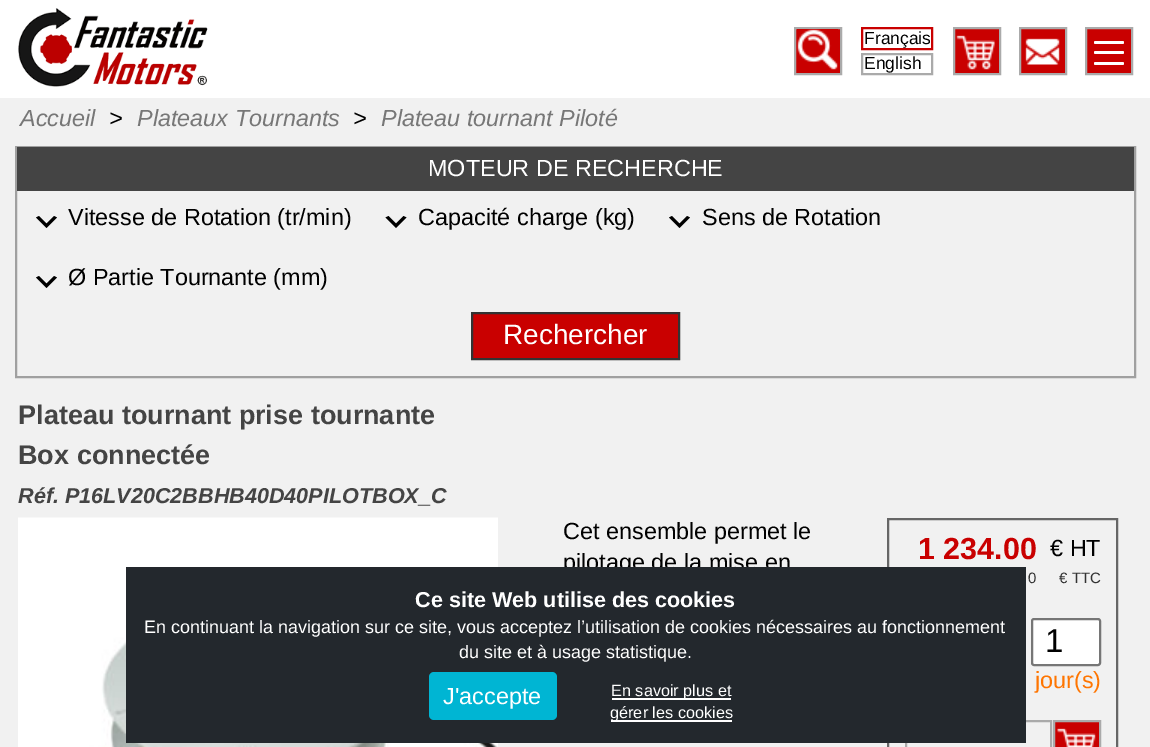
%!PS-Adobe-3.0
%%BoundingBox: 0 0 1150 747
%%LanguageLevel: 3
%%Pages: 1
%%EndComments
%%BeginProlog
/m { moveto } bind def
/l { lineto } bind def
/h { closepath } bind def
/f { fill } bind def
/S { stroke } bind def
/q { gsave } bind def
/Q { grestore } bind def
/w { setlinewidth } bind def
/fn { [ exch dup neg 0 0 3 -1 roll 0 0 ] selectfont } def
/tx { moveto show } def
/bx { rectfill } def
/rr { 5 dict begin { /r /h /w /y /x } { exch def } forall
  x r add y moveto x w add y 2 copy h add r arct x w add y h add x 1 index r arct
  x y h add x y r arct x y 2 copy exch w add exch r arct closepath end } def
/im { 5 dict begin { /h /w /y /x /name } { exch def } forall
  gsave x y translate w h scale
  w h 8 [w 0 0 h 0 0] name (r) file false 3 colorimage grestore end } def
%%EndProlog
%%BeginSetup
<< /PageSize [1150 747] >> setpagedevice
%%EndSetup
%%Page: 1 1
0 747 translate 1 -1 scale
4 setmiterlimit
0.945 setgray
0 0 1150 747 bx
1 setgray
0 0 1150 98 bx
(image0.raw) 18 8 190 79 im
0.788 0 0 setrgbcolor
795 28 m 841 28 l 841 74 l 795 74 l h q f Q
0.667 setgray
2 w
S
(image1.raw) 797 29 41 41 im
0.788 0 0 setrgbcolor
862 28 70 21 rectstroke
/LiberationSans-Regular 17.5 fn
0 setgray
(Français) 864 44 tx
0.667 setgray
862 54 70 20 rectstroke
0 setgray
(English) 864 69 tx
0.788 0 0 setrgbcolor
954 28 m 1000 28 l 1000 74 l 954 74 l h q f Q
0.667 setgray
S
(image2.raw) 956 35 39 35 im
0.788 0 0 setrgbcolor
1020 28 m 1066 28 l 1066 74 l 1020 74 l h q f Q
0.667 setgray
S
(image3.raw) 1025 38 35 27 im
0.788 0 0 setrgbcolor
1086 28 m 1132 28 l 1132 74 l 1086 74 l h q f Q
0.667 setgray
S
1 setgray
1094 51 30 3 1.5 rr f
1094 41 30 3 1.5 rr f
1094 62 30 3 1.5 rr f
/LiberationSans-Italic 23.4 fn
0.467 setgray
(Accueil) 20 126 tx
0 setgray
(>) 109 126 tx
0.467 setgray
(Plateaux Tournants) 137 126 tx
0 setgray
(>) 353 126 tx
0.467 setgray
(Plateau tournant Piloté) 381 126 tx
0.627 setgray
16 147 1119 230 rectstroke
0.267 setgray
17 147 1117 44 bx
/LiberationSans-Regular 23.4 fn
1 setgray
(MOTEUR DE RECHERCHE) 428 176 tx
0 setgray
39 216 m 46.5 223.5 l 54 216 l 57 217.5 l 46.5 228 l 36 217.5 l h f
(Vitesse de Rotation \(tr/min\)) 68 225 tx
388.5 216 m 396 223.5 l 403.5 216 l 406.5 217.5 l 396 228 l 385.5 217.5 l h f
(Capacité charge \(kg\)) 418 225 tx
672 216 m 679.5 223.5 l 687 216 l 690 217.5 l 679.5 228 l 669 217.5 l h f
(Sens de Rotation) 702 225 tx
39 276 m 46.5 283.5 l 54 276 l 57 277.5 l 46.5 288 l 36 277.5 l h f
(Ø Partie Tournante \(mm\)) 68 285 tx
0.788 0 0 setrgbcolor
472 313 m 679 313 l 679 359 l 472 359 l h q f Q
0.2 setgray
S
/LiberationSans-Regular 28 fn
1 setgray
(Rechercher) 503 344 tx
/LiberationSans-Bold 27 fn
0.267 setgray
(Plateau tournant prise tournante) 18 424 tx
(Box connectée) 18 464 tx
/LiberationSans-BoldItalic 21.6 fn
(Réf. P16LV20C2BBHB40D40PILOTBOX_C) 18 503 tx
(image4.raw) 18 517 480 230 im
/LiberationSans-Regular 23.4 fn
0 setgray
(Cet ensemble permet le) 563 539 tx
(pilotage de la mise en) 563 570 tx
0.4 setgray
888 519 229 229 rectstroke
/LiberationSans-Bold 30.5 fn
0.788 0 0 setrgbcolor
(1 234.00) 918 559 tx
/LiberationSans-Regular 23.4 fn
0 setgray
(€ HT) 1050 556 tx
/LiberationSans-Regular 15 fn
0.2 setgray
(0) 1028 583 tx
(€ TTC) 1059 583 tx
1 setgray
1032 619 68 46 2 rr q f Q
0.463 setgray
S
/LiberationSans-Regular 33 fn
0 setgray
(1) 1045 652 tx
/LiberationSans-Regular 23.4 fn
1 0.459 0 setrgbcolor
(jour\(s\)) 1035 688 tx
0.667 setgray
906 721 145 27 rectstroke
0.788 0 0 setrgbcolor
1054 721 m 1100 721 l 1100 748 l 1054 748 l h q f Q
0.667 setgray
S
(image5.raw) 1057 728 39 19 im
0.137 0.157 0.176 setrgbcolor
126 567 900 176 bx
/LiberationSans-Bold 21.6 fn
1 setgray
(Ce site Web utilise des cookies) 415 607 tx
/LiberationSans-Regular 18 fn
(En continuant la navigation sur ce site, vous acceptez l’utilisation de cookies nécessaires au fonctionnement) 144 633 tx
(du site et à usage statistique.) 459 658 tx
0 0.71 0.827 setrgbcolor
429 672 128 48 5 rr f
/LiberationSans-Regular 23.4 fn
1 setgray
(J'accepte) 443 704 tx
612 698 119 2 bx
/LiberationSans-Regular 16.25 fn
(En savoir plus et) 611 696 tx
611 720 121 2 bx
(gérer les cookies) 610 718 tx
showpage
%%EOF
